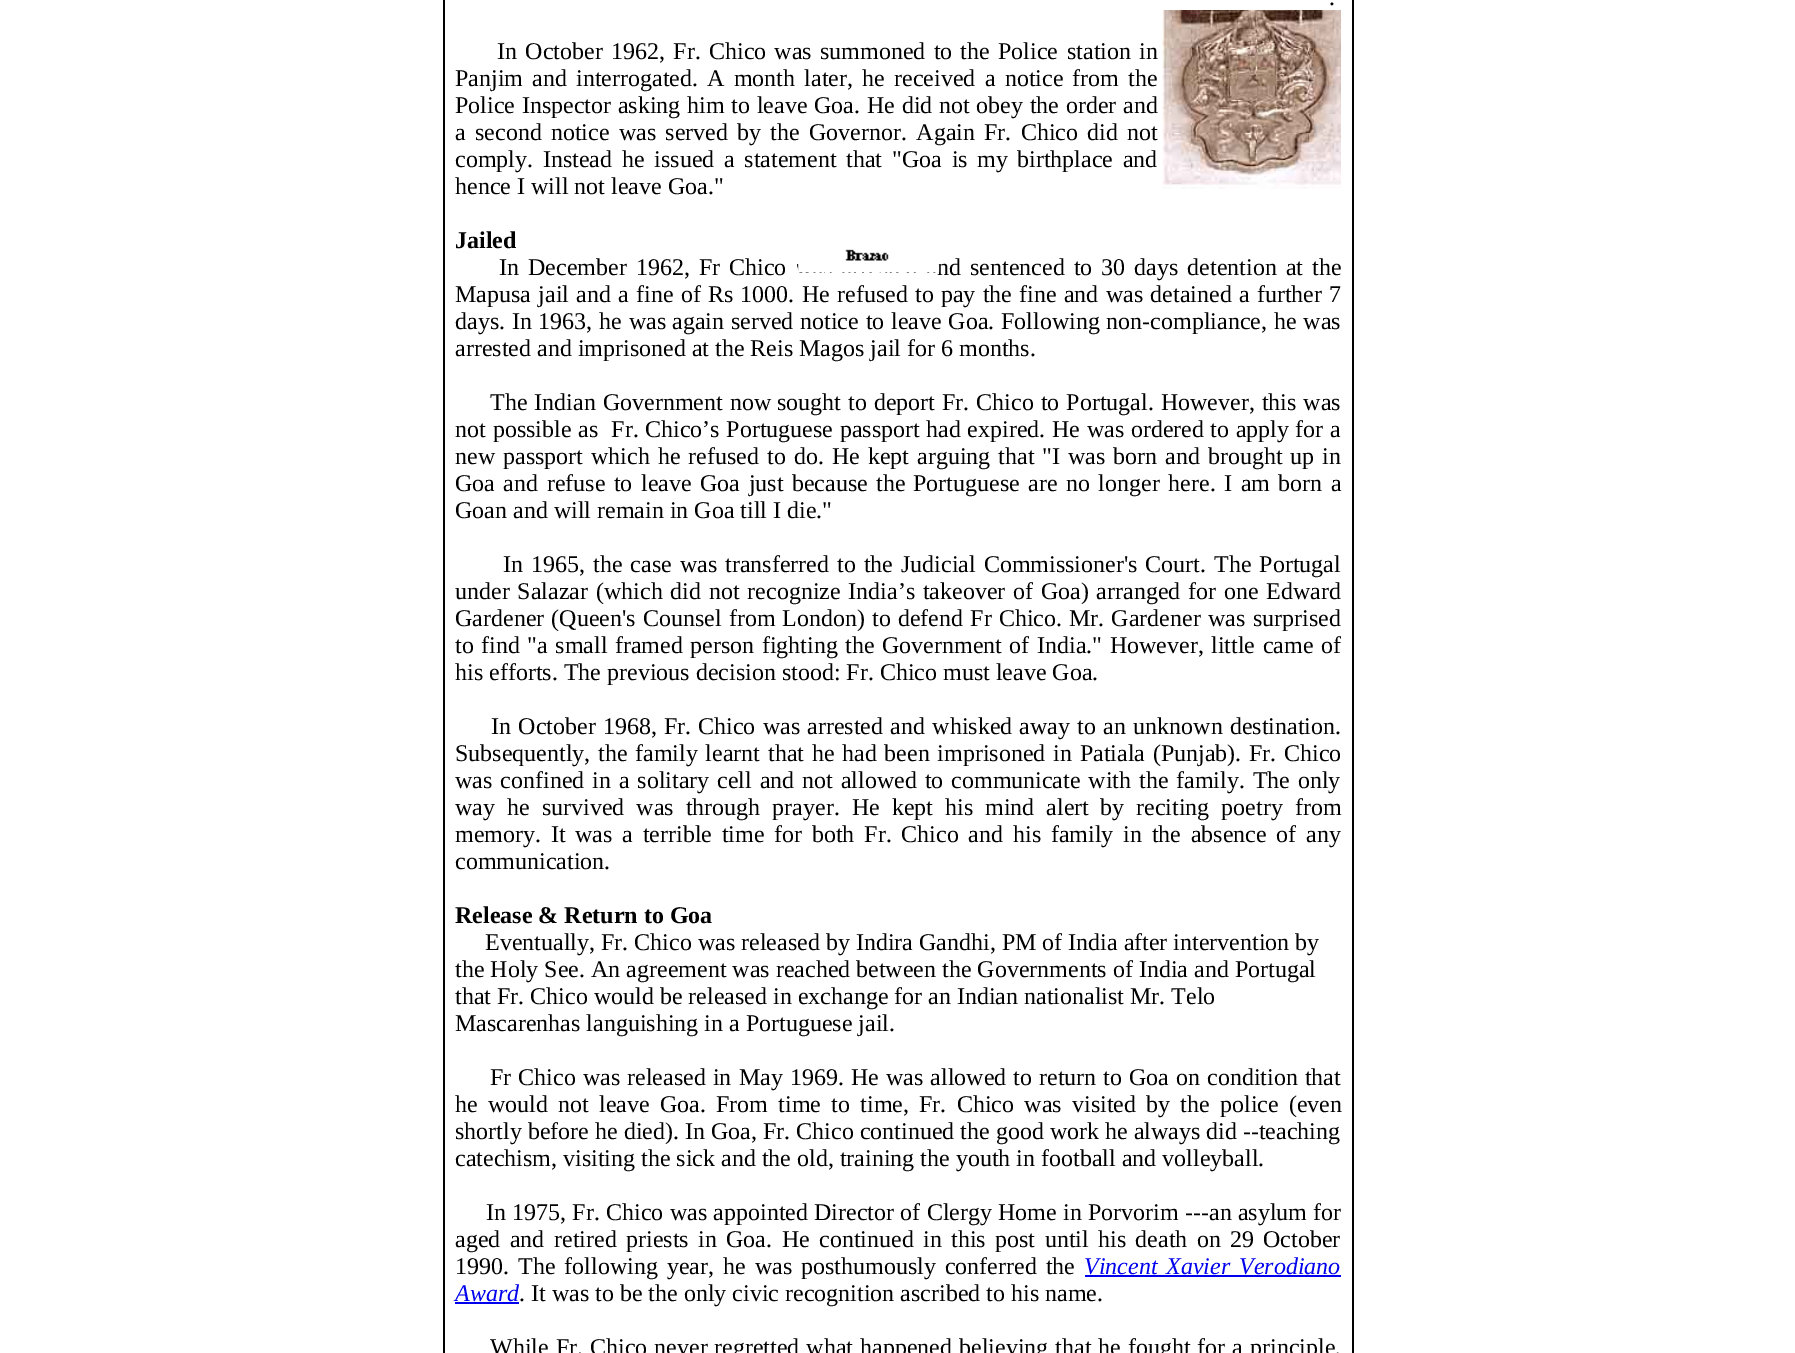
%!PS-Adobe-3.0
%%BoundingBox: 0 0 1795 1353
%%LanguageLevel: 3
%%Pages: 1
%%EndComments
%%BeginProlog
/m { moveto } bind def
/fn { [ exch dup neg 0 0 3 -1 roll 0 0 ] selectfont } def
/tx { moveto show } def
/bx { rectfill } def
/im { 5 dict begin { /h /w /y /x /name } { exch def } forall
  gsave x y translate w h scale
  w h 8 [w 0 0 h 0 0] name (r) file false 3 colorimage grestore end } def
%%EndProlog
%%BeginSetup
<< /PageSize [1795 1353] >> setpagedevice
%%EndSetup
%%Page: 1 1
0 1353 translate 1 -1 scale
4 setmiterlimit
1 setgray
0 0 1795 1353 bx
0 setgray
1352 0 2 1353 bx
443 0 2 1353 bx
/LiberationSerif-Regular 24 fn
(.) 1329 5 tx
(image0.raw) 1162 10 179 179 im
937 275 m 3 0 32 (nd) widthshow
(image1.raw) 797 249 143 24 im
497 59 m 2.25 0 32 (In October) widthshow
611 59 m 2.25 0 32 (1962, Fr. Chico was summoned to th) widthshow
(e) 979 59 tx
(Police) 998 59 tx
(statio) 1067 59 tx
1119 59 m 2.25 0 32 (n in) widthshow
(Panjim) 455 86 tx
(a) 532 86 tx
543 86 m 3.25 0 32 (nd int) widthshow
(erro) 601 86 tx
640 86 m 3.25 0 32 (gated. A month later, he received a notice) widthshow
1072 86 m 3.25 0 32 (from the) widthshow
455 113 m 0.75 0 32 (Police Inspector asking him to leave Goa. He did not obey the order and) widthshow
455 140 m 3.25 0 32 (a second notice was served by the) widthshow
809 140 m 3.25 0 32 (Governor. Again Fr. Chico did not) widthshow
455 167 m 3.75 0 32 (comply. Instead he issued a statement that) widthshow
892 167 m 3.75 0 32 ("Goa is my) widthshow
1017 167 m 3.75 0 32 (birthplace and) widthshow
(hence I will not leave Goa.") 455 194 tx
/LiberationSerif-Bold 24 fn
(Jailed) 455 248 tx
/LiberationSerif-Regular 24 fn
499 275 m 3 0 32 (In December 1962, Fr Chico) widthshow
970 275 m 3 0 32 (sentenced to 30 days detention at the) widthshow
455 302 m 1.25 0 32 (Mapusa jail and a fine of Rs 1000. He) widthshow
837 302 m 1.25 0 32 (refused to pay the fine and was detained a further 7) widthshow
455 329 m 0.75 0 32 (days. In 1963, he was) widthshow
672 329 m 0.75 0 32 (again served notice to leave Goa. Following non-compliance, he was) widthshow
(arrested and imprisoned at the Reis Magos jail for 6 months.) 455 356 tx
490 410 m 1 0 32 (The Indian Government now) widthshow
777 410 m 1 0 32 (sought to deport Fr. Chico to Portugal. However, this was) widthshow
455 437 m 1 0 32 (not possible) widthshow
578 437 m 0.6 0 32 (as  Fr. Chico’s Portuguese passport had expired. He was ordered to apply) widthshow
1295 437 m 1 0 32 (for a) widthshow
455 464 m 2 0 32 (new passport which he refused to do. He kept arguing that "I was) widthshow
1113 464 m 2 0 32 (born and brought up in) widthshow
455 491 m 2.5 0 32 (Goa and refuse to leave Goa just because the) widthshow
913 491 m 2.5 0 32 (Portuguese are no longer here. I am born a) widthshow
(Goan and will remain in Goa till I die.") 455 518 tx
503 572 m 2 0 32 (In 1965, the case was) widthshow
725 572 m 2 0 32 (transferred to the Judicial Commissioner's Court. The Portugal) widthshow
455 599 m 1.75 0 32 (under Salazar) widthshow
596 599 m 1.75 0 32 (\(which did not recognize India’s takeover of Goa\) arranged for one Edward) widthshow
455 626 m 1.1 0 32 (Gardener \(Queen's Counsel from London\) to defend Fr Chico. Mr. Gardener was) widthshow
(surprised) 1253 626 tx
455 653 m 1.5 0 32 (to find "a small framed person fighting the Government of) widthshow
1037 653 m 1.5 0 32 (India." However, little came of) widthshow
(his efforts. The previous decision stood: Fr. Chico must leave Goa.) 455 680 tx
491 734 m 1.25 0 32 (In October 1968, Fr.) widthshow
698 734 m 1.25 0 32 (Chico was arrested and whisked away to an unknown destination.) widthshow
(Subsequently,) 455 761 tx
598 761 m 1.75 0 32 (the family learnt that he had been imprisoned in Patiala \(Punjab\). Fr. Chico) widthshow
455 788 m 1.9 0 32 (was confined in a solitary cell and not allowed to communicate with the) widthshow
1176 788 m 1.9 0 32 (family. The only) widthshow
455 815 m 6 0 32 (way he survived was through prayer. He kept his mind alert) widthshow
1100 815 m 6 0 32 (by reciting poetry from) widthshow
455 842 m 3.75 0 32 (memory. It was a terrible time for both Fr. Chico and) widthshow
1013 842 m 3.75 0 32 (his family in the absence of any) widthshow
(communication.) 455 869 tx
/LiberationSerif-Bold 24 fn
(Release & Return to Goa) 455 923 tx
/LiberationSerif-Regular 24 fn
(Eventually, Fr. Chico was released by Indira Gandhi, PM of India after intervention by) 485 950 tx
(the Holy See. An agreement was reached between the Governments of India and Portugal) 455 977 tx
(that Fr. Chico would be released in exchange for an Indian nationalist Mr. Telo) 455 1004 tx
(Mascarenhas languishing in a Portuguese jail.) 455 1031 tx
490 1085 m 1 0 32 (Fr Chico was released in) widthshow
739 1085 m 1 0 32 (May 1969. He was allowed to return to Goa on condition that) widthshow
455 1112 m 4.25 0 32 (he would not) widthshow
599 1112 m 4.25 0 32 (leave Goa. From time to time, Fr. Chico was visited by the police \(even) widthshow
(shortly before he died\). In Goa, Fr. Chico continued the good work he always did --teaching) 455 1139 tx
(catechism, visiting the sick and the old, training the youth in football and volleyball.) 455 1166 tx
486 1220 m 0.25 0 32 (In 1975, Fr. Chico was appointed Director of Clergy Home in Porvorim ---an asylum for) widthshow
455 1247 m 3.4 0 32 (aged and) widthshow
554 1247 m 3.4 0 32 (retired priests in Goa. He continued in this post until his death on 29) widthshow
(October) 1263 1247 tx
455 1274 m 3 0 32 (1990. The following year, he was posthumously conferred the) widthshow
/LiberationSerif-Italic 24 fn
0 0 0.933 setrgbcolor
(Vincent) 1084 1274 tx
1085 1275 256 2 bx
1166 1274 m 3 0 32 (Xavier Verodiano) widthshow
(Award) 455 1301 tx
/LiberationSerif-Regular 24 fn
0 setgray
(. It was to be the only civic recognition ascribed to his name.) 519 1301 tx
0 0 0.933 setrgbcolor
455 1302 64 2 bx
0 setgray
490 1355 m 1 0 32 (While Fr. Chico never) widthshow
714 1355 m 1 0 32 (regretted what happened believing that he fought for a principle,) widthshow
showpage
%%EOF
